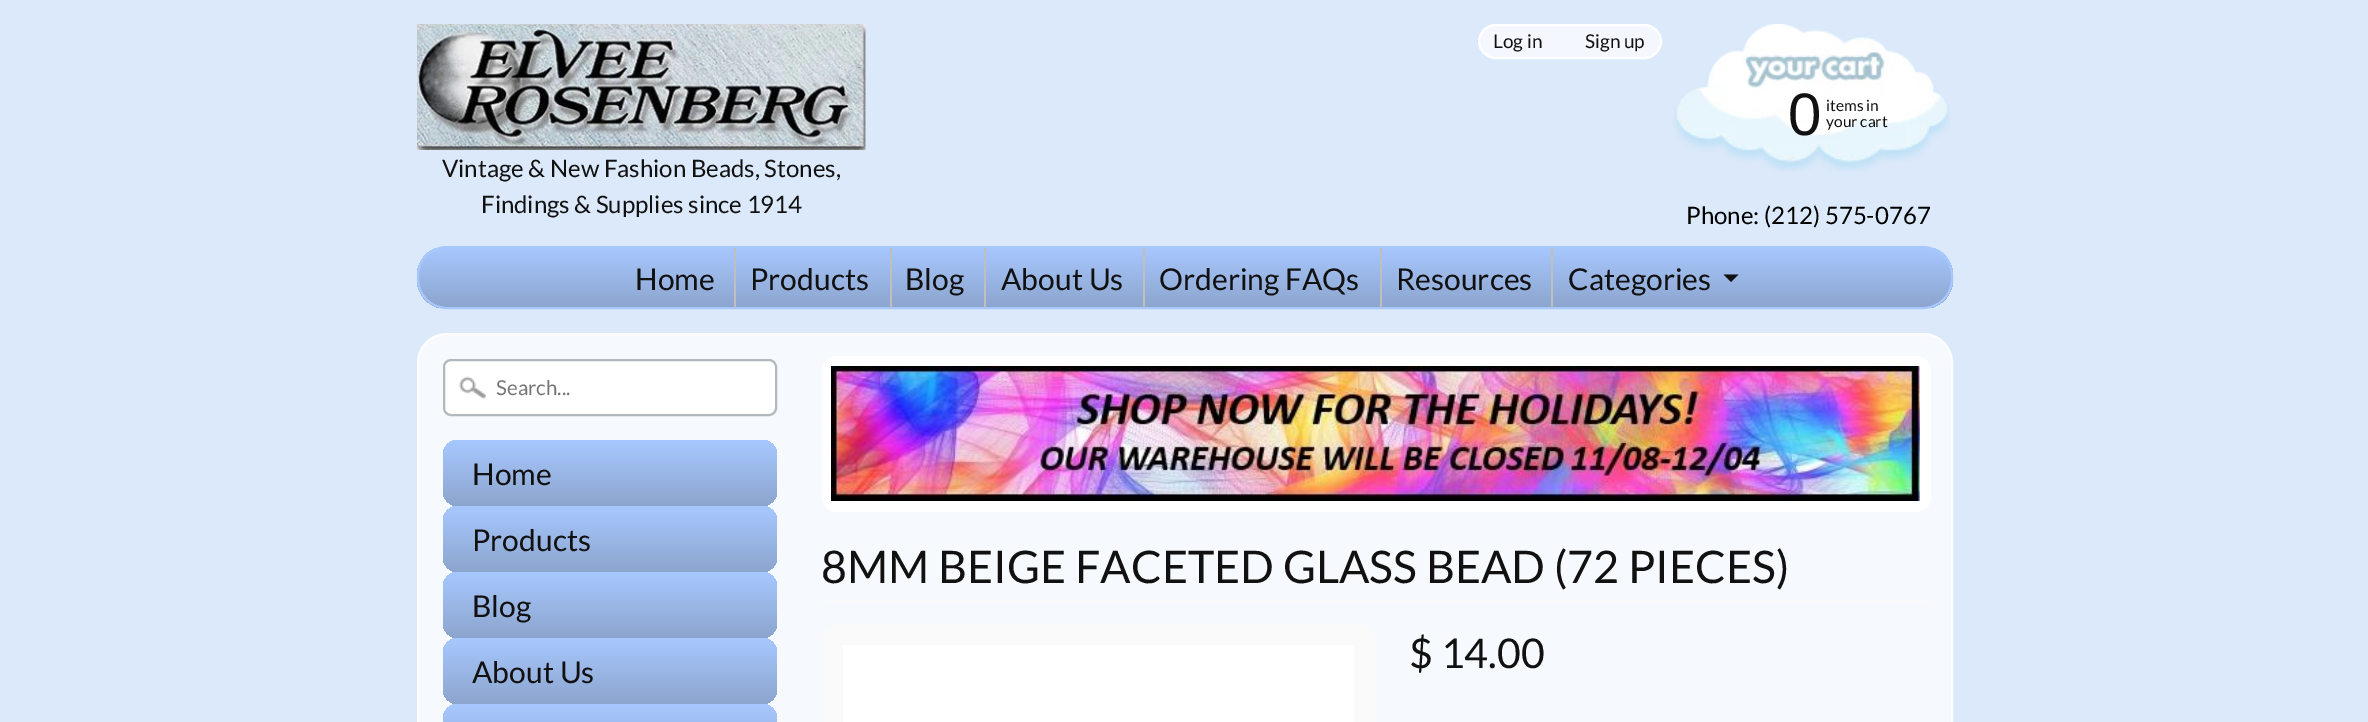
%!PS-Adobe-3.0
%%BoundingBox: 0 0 2368 722
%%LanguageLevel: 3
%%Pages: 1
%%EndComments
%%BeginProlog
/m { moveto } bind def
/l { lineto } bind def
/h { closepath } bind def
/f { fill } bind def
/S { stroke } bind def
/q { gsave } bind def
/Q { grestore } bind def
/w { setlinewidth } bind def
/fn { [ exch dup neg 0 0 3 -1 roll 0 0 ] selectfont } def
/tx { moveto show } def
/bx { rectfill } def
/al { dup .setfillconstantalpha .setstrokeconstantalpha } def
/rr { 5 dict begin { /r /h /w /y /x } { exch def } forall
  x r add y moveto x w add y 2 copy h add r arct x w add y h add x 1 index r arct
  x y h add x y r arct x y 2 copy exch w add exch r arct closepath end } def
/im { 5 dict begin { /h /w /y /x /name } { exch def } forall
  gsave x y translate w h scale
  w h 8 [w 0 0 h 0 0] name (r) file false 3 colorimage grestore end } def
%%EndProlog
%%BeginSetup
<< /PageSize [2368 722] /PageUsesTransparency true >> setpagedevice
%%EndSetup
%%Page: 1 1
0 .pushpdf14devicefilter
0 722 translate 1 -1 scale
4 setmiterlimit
0.859 0.914 0.98 setrgbcolor
0 0 2368 722 bx
0.957 0.973 0.996 setrgbcolor
1479 25 182 33 16.5 rr q f Q
1 setgray
2 w
S
/Lato-Regular 19 fn
0.067 setgray
(Log in) 1493 48 tx
(Sign up) 1585 48 tx
(image0.raw) 417 24 449 126 im
/Lato-Regular 24 fn
(Vintage & New Fashion Beads, Stones,) 442 177 tx
(Findings & Supplies since 1914) 481 213 tx
(image1.raw) 1673 24 277 148 im
/LiberationSans-Regular 60 fn
(0) 1788 135 tx
/Lato-Regular 15.5 fn
(items in) 1826 111 tx
(your cart) 1826 127 tx
/Lato-Regular 24 fn
0 setgray
(Phone: \(212\) 575-0767) 1686 224 tx
q
417 246 1536 63 30 rr clip newpath
q 417 248 m 1953 248 l 1953 308 l 417 308 l h clip newpath
<< /ShadingType 2 /ColorSpace /DeviceRGB /Coords [1185 247 1185 308] /Extend [true true] /Function << /FunctionType 2 /Domain [0 1] /C0 [0.655 0.784 1] /C1 [0.549 0.647 0.804] /N 1 >> >> shfill Q
Q
0.655 0.784 1 setrgbcolor
418 247 1534 61 29 rr S
/Lato-Regular 30 fn
0.067 setgray
(Home) 635 290 tx
0.749 setgray
734 248 2 60 bx
0.067 setgray
(Products) 750 290 tx
0.749 setgray
890 248 2 60 bx
0.067 setgray
(Blog) 905 290 tx
0.749 setgray
984 248 2 60 bx
0.067 setgray
(About Us) 1001 290 tx
0.749 setgray
1143 248 2 60 bx
0.067 setgray
(Ordering FAQs) 1159 290 tx
0.749 setgray
1380 248 2 60 bx
0.067 setgray
(Resources) 1396 290 tx
0.749 setgray
1551 248 2 60 bx
0.067 setgray
(Categories) 1568 290 tx
1723.5 274.5 m 1738.5 274.5 l 1731 282 l h f
0.965 0.976 0.996 setrgbcolor
417 333 1536 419 30 rr f
0.7 al
1 setgray
418 334 1534 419 29 rr S
1 al
443 359 334 57 8 rr f
(image2.raw) 459 376 27 23 im
0.698 0.725 0.741 setrgbcolor
444 360 332 55 7 rr S
/Lato-Regular 20.5 fn
0.459 setgray
(Search...) 496 395 tx
q 443 440 334 66 15 rr clip newpath
<< /ShadingType 2 /ColorSpace /DeviceRGB /Coords [610 440 610 506] /Extend [true true] /Function << /FunctionType 2 /Domain [0 1] /C0 [0.655 0.784 1] /C1 [0.549 0.647 0.804] /N 1 >> >> shfill Q
/Lato-Regular 30 fn
0.067 setgray
(Home) 472 485 tx
q 443 506 334 66 15 rr clip newpath
<< /ShadingType 2 /ColorSpace /DeviceRGB /Coords [610 506 610 572] /Extend [true true] /Function << /FunctionType 2 /Domain [0 1] /C0 [0.655 0.784 1] /C1 [0.549 0.647 0.804] /N 1 >> >> shfill Q
(Products) 472 551 tx
q 443 572 334 66 15 rr clip newpath
<< /ShadingType 2 /ColorSpace /DeviceRGB /Coords [610 572 610 638] /Extend [true true] /Function << /FunctionType 2 /Domain [0 1] /C0 [0.655 0.784 1] /C1 [0.549 0.647 0.804] /N 1 >> >> shfill Q
(Blog) 472 617 tx
q 443 638 334 66 15 rr clip newpath
<< /ShadingType 2 /ColorSpace /DeviceRGB /Coords [610 638 610 704] /Extend [true true] /Function << /FunctionType 2 /Domain [0 1] /C0 [0.655 0.784 1] /C1 [0.549 0.647 0.804] /N 1 >> >> shfill Q
(About Us) 472 683 tx
q 443 704 334 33 15 rr clip newpath
<< /ShadingType 2 /ColorSpace /DeviceRGB /Coords [610 704 610 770] /Extend [true true] /Function << /FunctionType 2 /Domain [0 1] /C0 [0.655 0.784 1] /C1 [0.549 0.647 0.804] /N 1 >> >> shfill Q
1 setgray
822 356 1109 156 15 rr f
(image3.raw) 831 366 1089 135 im
0.98 setgray
822 600 1109 2 bx
/Lato-Regular 44.9 fn
0.067 setgray
(8MM BEIGE FACETED GLASS BEAD \(72 PIECES\)) 821 583 tx
0.98 setgray
822 624 554 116 18 rr f
1 setgray
843 645 511 77 bx
/Lato-Regular 41 fn
0.067 setgray
($ 14.00) 1409 668 tx
.poppdf14devicefilter showpage
%%EOF
